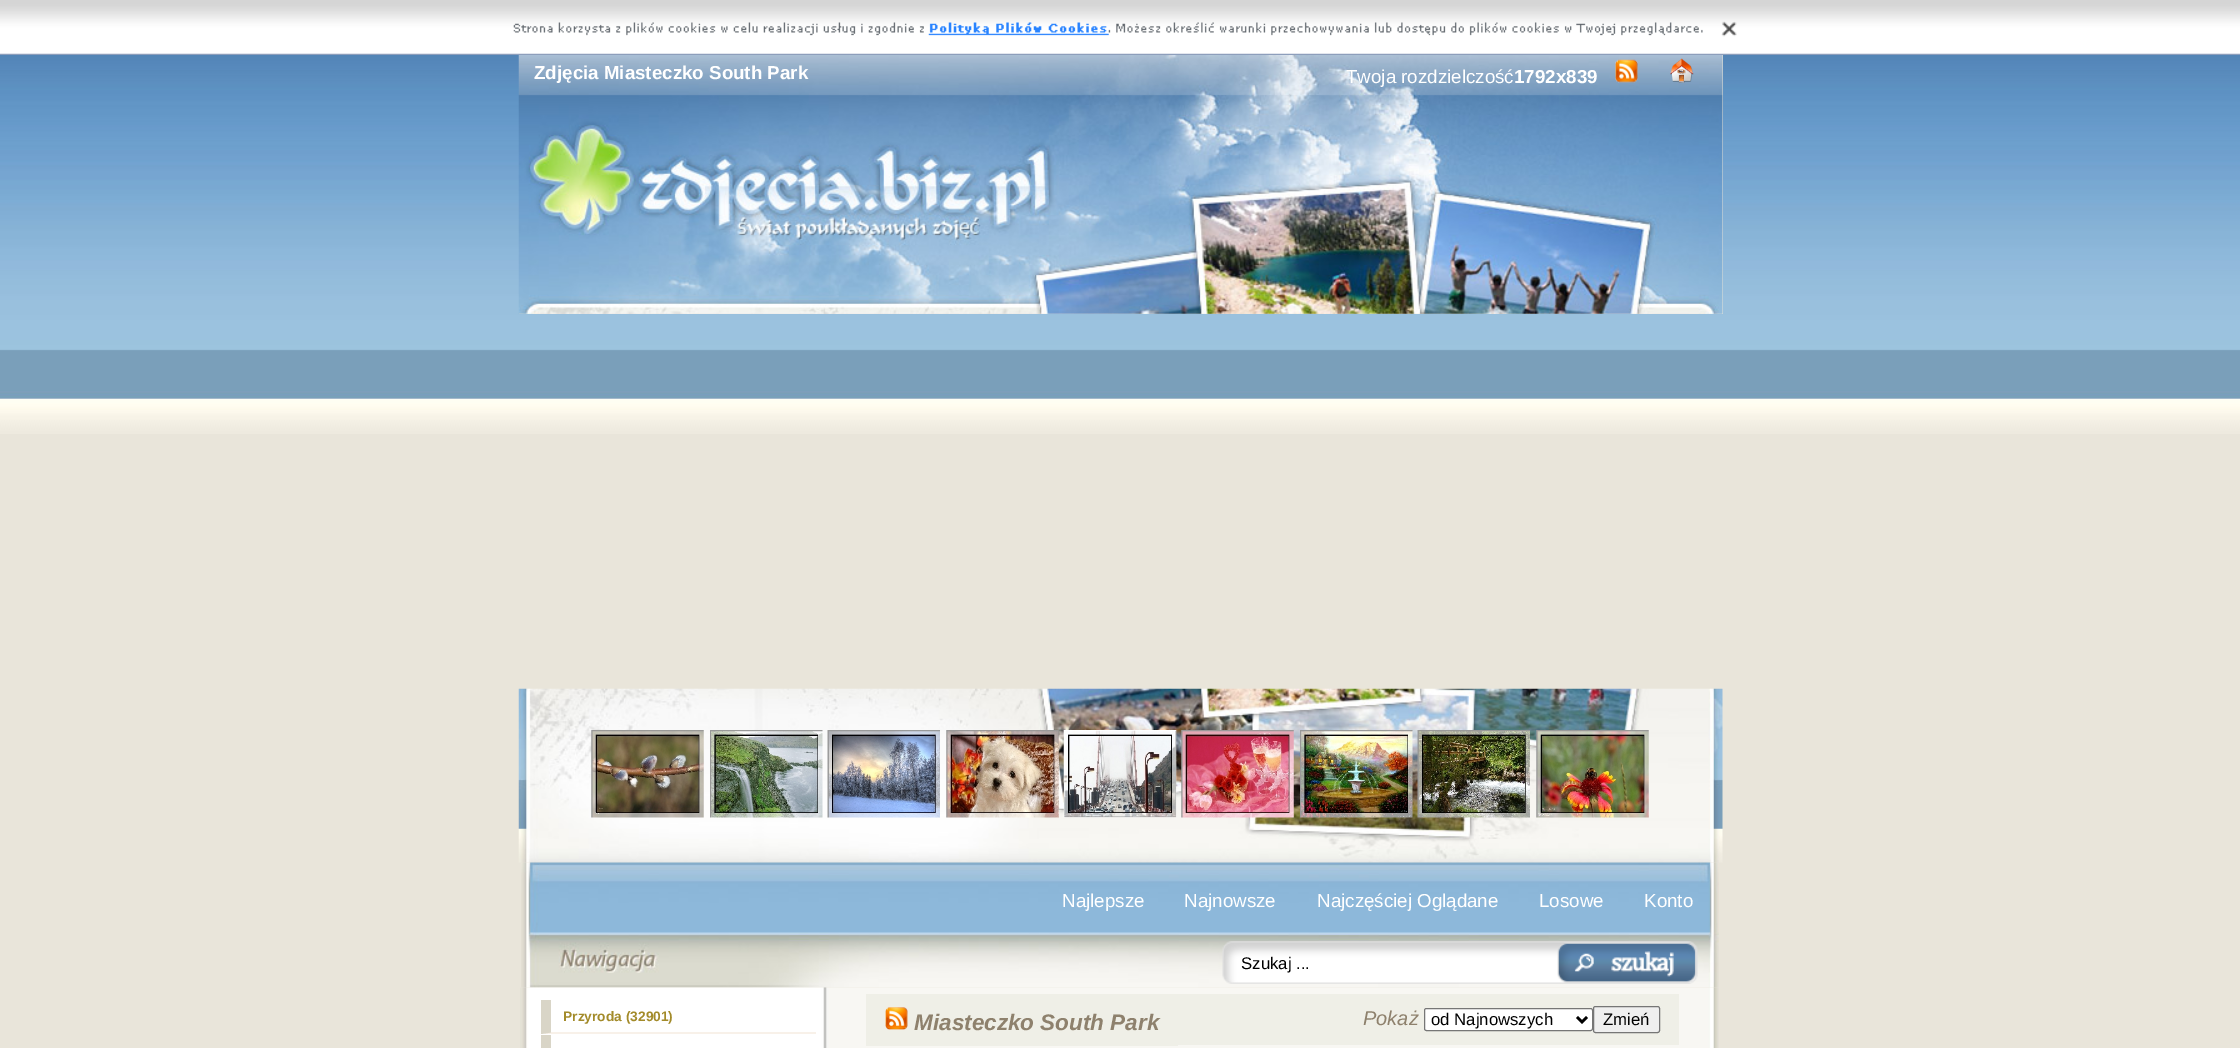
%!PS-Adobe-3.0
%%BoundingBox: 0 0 2240 1048
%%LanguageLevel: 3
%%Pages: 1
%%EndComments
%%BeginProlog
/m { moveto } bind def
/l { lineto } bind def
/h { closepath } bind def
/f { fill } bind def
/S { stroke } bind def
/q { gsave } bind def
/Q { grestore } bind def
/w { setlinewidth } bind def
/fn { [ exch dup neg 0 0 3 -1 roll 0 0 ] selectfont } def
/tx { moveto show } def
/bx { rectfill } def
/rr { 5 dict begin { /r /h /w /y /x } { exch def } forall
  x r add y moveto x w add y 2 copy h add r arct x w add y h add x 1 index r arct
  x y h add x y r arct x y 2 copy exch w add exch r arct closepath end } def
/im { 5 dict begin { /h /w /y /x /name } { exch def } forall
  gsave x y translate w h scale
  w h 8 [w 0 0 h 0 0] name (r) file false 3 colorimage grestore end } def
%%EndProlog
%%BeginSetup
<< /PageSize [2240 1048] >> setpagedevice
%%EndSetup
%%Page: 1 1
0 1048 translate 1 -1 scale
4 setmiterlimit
0.914 0.898 0.855 setrgbcolor
0 0 2240 1048 bx
(image0.raw) 0 55 2240 379 im
(image1.raw) 0 0 2240 55 im
(image2.raw) 513 21 1224 16 im
0.91 0.898 0.851 setrgbcolor
519 55 1204 259 bx
(image3.raw) 518 55 1205 259 im
/LiberationSans-Bold 18.75 fn
1 setgray
(Zdjęcia Miasteczko South Park) 534 79 tx
/LiberationSans-Regular 18.75 fn
(Twoja rozdzielczość) 1346 83 tx
/LiberationSans-Bold 18.75 fn
(1792x839) 1514 83 tx
(image4.raw) 1615 59 23 24 im
(image5.raw) 1670 58 24 25 im
(image6.raw) 518 688 1205 175 im
(image7.raw) 591 730 113 88 im
(image8.raw) 710 730 113 88 im
(image9.raw) 827 730 113 88 im
(image10.raw) 946 730 113 88 im
(image11.raw) 1063 730 114 88 im
(image12.raw) 1181 730 113 88 im
(image13.raw) 1300 730 113 88 im
(image14.raw) 1417 730 113 88 im
(image15.raw) 1536 730 113 88 im
(image16.raw) 521 862 1198 126 im
/LiberationSans-Regular 18.75 fn
(Najlepsze) 1062 907 tx
(Najnowsze) 1184 907 tx
(Najczęściej Oglądane) 1317 907 tx
(Losowe) 1539 907 tx
(Konto) 1644 907 tx
(image17.raw) 1222 941 476 43 im
/LiberationSans-Regular 16.75 fn
0 setgray
(Szukaj ...) 1241 969 tx
(image18.raw) 520 987 1199 61 im
0.973 0.945 0.914 setrgbcolor
816 1034 m 541 1034 l 551 1032 l 816 1032 l h f
0.851 0.835 0.78 setrgbcolor
541 1034 m 541 1000 l 551 1000 l 551 1032.5 l h 541 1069 m 541 1035 l 551 1035 l 551 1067.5 l h f
/LiberationSans-Bold 13.75 fn
0.639 0.545 0.165 setrgbcolor
(Przyroda \(32901\)) 563 1021 tx
0.937 0.937 0.906 setrgbcolor
866 994 312 52 bx
(image19.raw) 885 1007 23 23 im
/LiberationSans-BoldItalic 22.5 fn
0.557 0.506 0.427 setrgbcolor
(Miasteczko South Park) 914 1030 tx
0.937 0.937 0.906 setrgbcolor
1178 994 501 51 bx
/LiberationSans-Italic 20 fn
0.557 0.506 0.427 setrgbcolor
(Pokaż) 1363 1025 tx
1 setgray
1424.5 1008.5 168 22 2 rr q f Q
0.463 setgray
S
0 setgray
2.5 w
1577 1017 m 1582 1022 l 1587 1017 l S
/LiberationSans-Regular 16.75 fn
(od Najnowszych) 1431 1025 tx
0.937 setgray
1593.5 1006.5 66 26 2 rr q f Q
0.463 setgray
1 w
S
0 setgray
(Zmień) 1603 1025 tx
showpage
%%EOF
